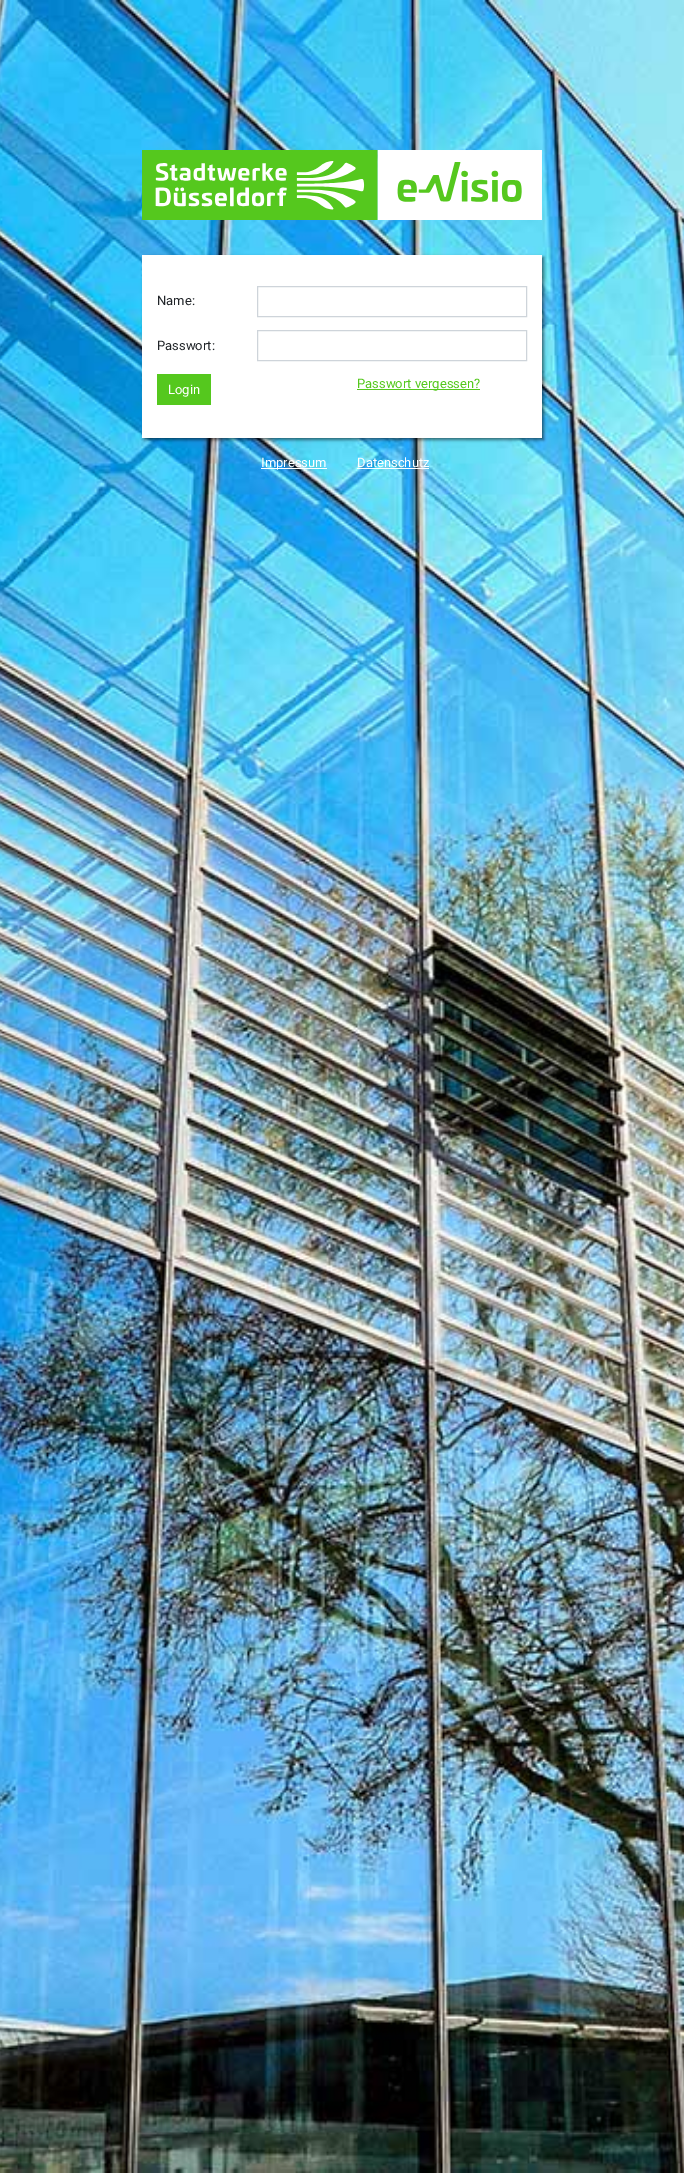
%!PS-Adobe-3.0
%%BoundingBox: 0 0 684 2173
%%LanguageLevel: 3
%%Pages: 1
%%EndComments
%%BeginProlog
/fn { [ exch dup neg 0 0 3 -1 roll 0 0 ] selectfont } def
/tx { moveto show } def
/bx { rectfill } def
/al { dup .setfillconstantalpha .setstrokeconstantalpha } def
/rr { 5 dict begin { /r /h /w /y /x } { exch def } forall
  x r add y moveto x w add y 2 copy h add r arct x w add y h add x 1 index r arct
  x y h add x y r arct x y 2 copy exch w add exch r arct closepath end } def
/sh { 12 dict begin { /a /b /q /h /w /y /x } { exch def } forall gsave /was 0 def
  9 -2 -9 { dup b mul 4 div /e exch def 1 sub .425 mul 2.718 exch exp 1 add a .99 .min exch div /now exch def
    1 1 now sub 1 was sub div sub al /was now def
    w h .min e 2 mul add 0 gt { x e sub y e sub w e 2 mul add h e 2 mul add
      q e add b .6 mul add w h .min 2 div e add .min 0 .max rr fill } if } for grestore end } def
/im { 5 dict begin { /h /w /y /x /name } { exch def } forall
  gsave x y translate w h scale
  w h 8 [w 0 0 h 0 0] name (r) file false 3 colorimage grestore end } def
%%EndProlog
%%BeginSetup
<< /PageSize [684 2173] /PageUsesTransparency true >> setpagedevice
%%EndSetup
%%Page: 1 1
0 .pushpdf14devicefilter
0 2173 translate 1 -1 scale
4 setmiterlimit
1 setgray
0 0 684 2173 bx
(image0.raw) 0 0 684 2173 im
(image1.raw) 142 150 400 70 im
0 setgray
144 257 400 183 0 1.5 0.5 sh
1 setgray
142 255 400 183 bx
/Roboto-Regular 13 fn
0.129 0.145 0.161 setrgbcolor
(Name:) 157 305 tx
0.808 0.831 0.855 setrgbcolor
257.5 286.5 269 30 rectstroke
0.129 0.145 0.161 setrgbcolor
(Passwort:) 157 350 tx
0.808 0.831 0.855 setrgbcolor
257.5 330.5 269 30 rectstroke
0.333 0.784 0.118 setrgbcolor
157 374 54 31 bx
1 setgray
(Login) 168 394 tx
0.333 0.784 0.118 setrgbcolor
357 389 123 1 bx
(Passwort vergessen?) 357 388 tx
1 setgray
261 468 66 1 bx
(Impressum) 261 467 tx
(Datenschutz) 357 467 tx
357 468 72 1 bx
.poppdf14devicefilter showpage
%%EOF
